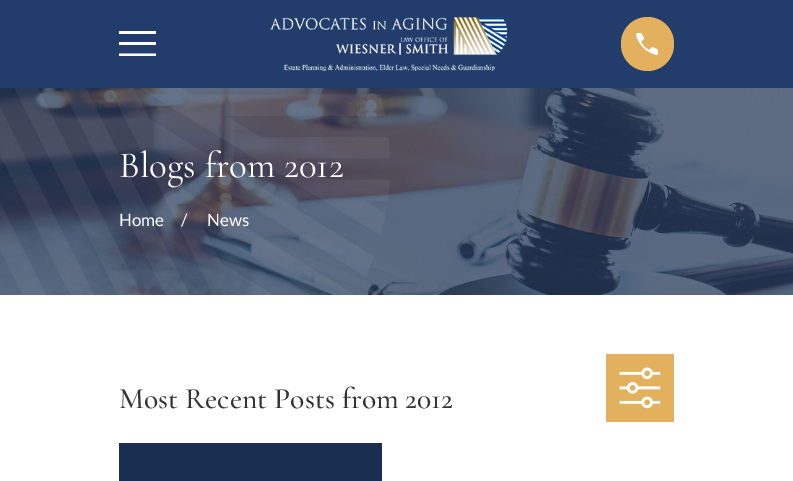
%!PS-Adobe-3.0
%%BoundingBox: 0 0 793 481
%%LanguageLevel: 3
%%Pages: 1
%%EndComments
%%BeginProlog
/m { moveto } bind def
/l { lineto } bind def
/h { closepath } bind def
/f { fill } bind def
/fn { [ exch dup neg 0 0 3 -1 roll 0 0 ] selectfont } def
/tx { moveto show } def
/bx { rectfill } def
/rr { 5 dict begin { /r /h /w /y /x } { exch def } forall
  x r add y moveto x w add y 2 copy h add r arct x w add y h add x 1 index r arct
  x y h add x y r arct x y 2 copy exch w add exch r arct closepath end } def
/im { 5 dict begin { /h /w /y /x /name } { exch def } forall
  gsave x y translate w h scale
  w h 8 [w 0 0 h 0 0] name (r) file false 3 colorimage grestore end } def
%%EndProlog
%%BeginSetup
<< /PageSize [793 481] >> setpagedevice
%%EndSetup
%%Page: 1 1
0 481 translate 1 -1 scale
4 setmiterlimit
1 setgray
0 0 793 481 bx
0.133 0.239 0.424 setrgbcolor
0 0 793 88 bx
1 setgray
119 31 m 119 34 l 156 34 l 156 31 l h 119 42 m 119 45 l 156 45 l 156 42 l h 119 53.5 m 119 56 l 156 56 l 156 53.5 l h f
(image0.raw) 270 17 237 54 im
0.89 0.694 0.365 setrgbcolor
621 17 53 54 26.5 rr f
(image1.raw) 636 33 22 22 im
(image2.raw) 0 88 793 207 im
/CormorantGaramond-Regular 37 fn
1 setgray
(Blogs from 2012) 119 177 tx
/Lato-Regular 17 fn
(Home) 119 226 tx
(/) 181 226 tx
(News) 207 226 tx
/CormorantGaramond-Medium 29.6 fn
0.204 setgray
(Most Recent Posts from 2012) 119 408 tx
0.89 0.694 0.365 setrgbcolor
606 354 68 68 bx
(image3.raw) 619 367 42 42 im
0.102 0.18 0.318 setrgbcolor
119 443 263 38 bx
showpage
%%EOF
